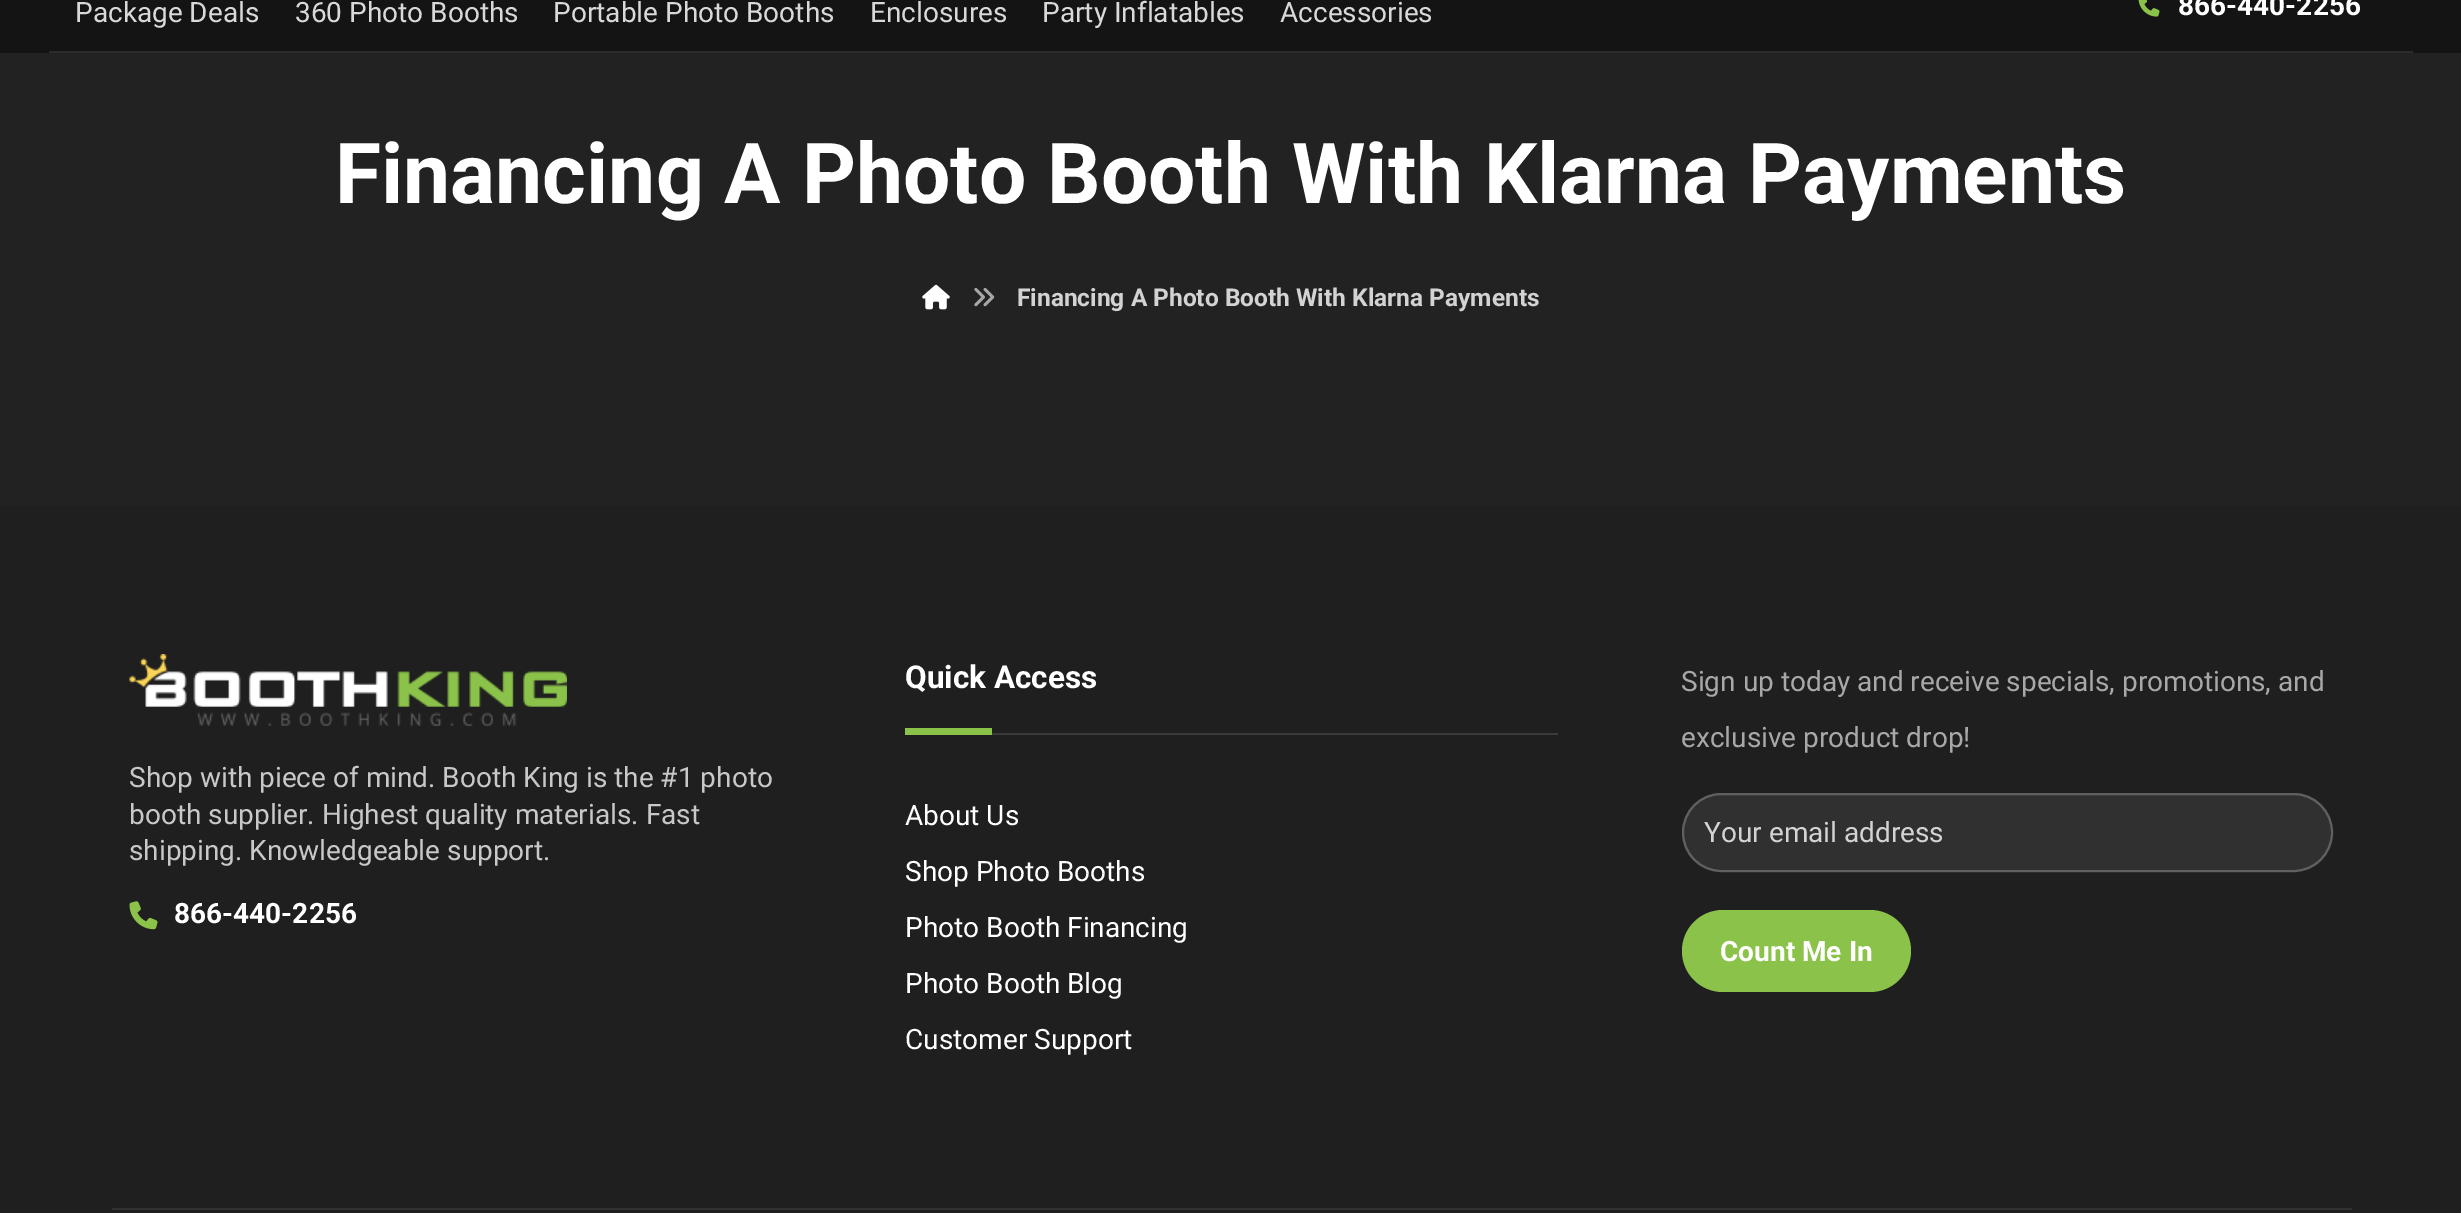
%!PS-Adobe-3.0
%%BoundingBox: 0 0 2461 1213
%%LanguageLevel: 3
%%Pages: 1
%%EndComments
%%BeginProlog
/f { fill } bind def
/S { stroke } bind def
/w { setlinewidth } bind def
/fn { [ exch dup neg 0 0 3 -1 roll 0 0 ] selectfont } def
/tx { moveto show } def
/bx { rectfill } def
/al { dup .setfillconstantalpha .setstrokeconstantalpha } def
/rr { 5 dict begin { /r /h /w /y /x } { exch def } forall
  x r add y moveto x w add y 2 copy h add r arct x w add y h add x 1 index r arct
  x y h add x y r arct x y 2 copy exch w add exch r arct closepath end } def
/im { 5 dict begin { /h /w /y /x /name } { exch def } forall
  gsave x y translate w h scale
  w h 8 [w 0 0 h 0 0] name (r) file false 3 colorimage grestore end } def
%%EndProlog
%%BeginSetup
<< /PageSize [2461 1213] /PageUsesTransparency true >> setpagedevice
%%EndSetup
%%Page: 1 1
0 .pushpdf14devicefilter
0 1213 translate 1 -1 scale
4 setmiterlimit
0.133 setgray
0 0 2461 1213 bx
0.078 setgray
0 0 2461 53 bx
0.173 setgray
49 51 2364 2 bx
/Roboto-Regular 28 fn
0.851 setgray
(Package Deals) 75 22 tx
(360 Photo Booths) 295 22 tx
(Portable Photo Booths) 553 22 tx
(Enclosures) 870 22 tx
(Party Inflatables) 1042 22 tx
(Accessories) 1280 22 tx
(image0.raw) 2138 0 22 17 im
/Roboto-Bold 28 fn
1 setgray
(866-440-2256) 2178 15 tx
/Roboto-Bold 84 fn
(Financing A Photo Booth With Klarna Payments) 335 203 tx
(image1.raw) 922 284 28 26 im
(image2.raw) 974 287 21 20 im
/Roboto-Bold 24.5 fn
0.827 setgray
(Financing A Photo Booth With Klarna Payments) 1017 306 tx
0.122 setgray
0 506 2461 707 bx
(image3.raw) 129 654 438 72 im
/Roboto-Regular 28 fn
0.784 setgray
(Shop with piece of mind. Booth King is the #1 photo) 129 787 tx
(booth supplier. Highest quality materials. Fast) 129 824 tx
(shipping. Knowledgeable support.) 129 860 tx
(image4.raw) 129 901 29 29 im
/Roboto-Bold 28 fn
1 setgray
(866-440-2256) 174 923 tx
0.227 setgray
992 733 566 2 bx
/Roboto-Bold 31.5 fn
1 setgray
(Quick Access) 905 688 tx
0.545 0.765 0.29 setrgbcolor
905 728 87 7 bx
/Roboto-Regular 28 fn
1 setgray
(About Us) 905 825 tx
(Shop Photo Booths) 905 881 tx
(Photo Booth Financing) 905 937 tx
(Photo Booth Blog) 905 993 tx
(Customer Support) 905 1049 tx
0.659 setgray
(Sign up today and receive specials, promotions, and) 1681 691 tx
(exclusive product drop!) 1681 747 tx
0.188 setgray
1682 793 651 79 39.5 rr f
0.4 al
0.655 setgray
2 w
1683 794 649 77 38.5 rr S
1 al
0.827 setgray
(Your email address) 1704 842 tx
0.545 0.765 0.29 setrgbcolor
1682 910 229 82 41 rr f
/Roboto-Bold 28 fn
1 setgray
(Count Me In) 1720 961 tx
0.192 setgray
112 1208 2240 2 bx
.poppdf14devicefilter showpage
%%EOF
